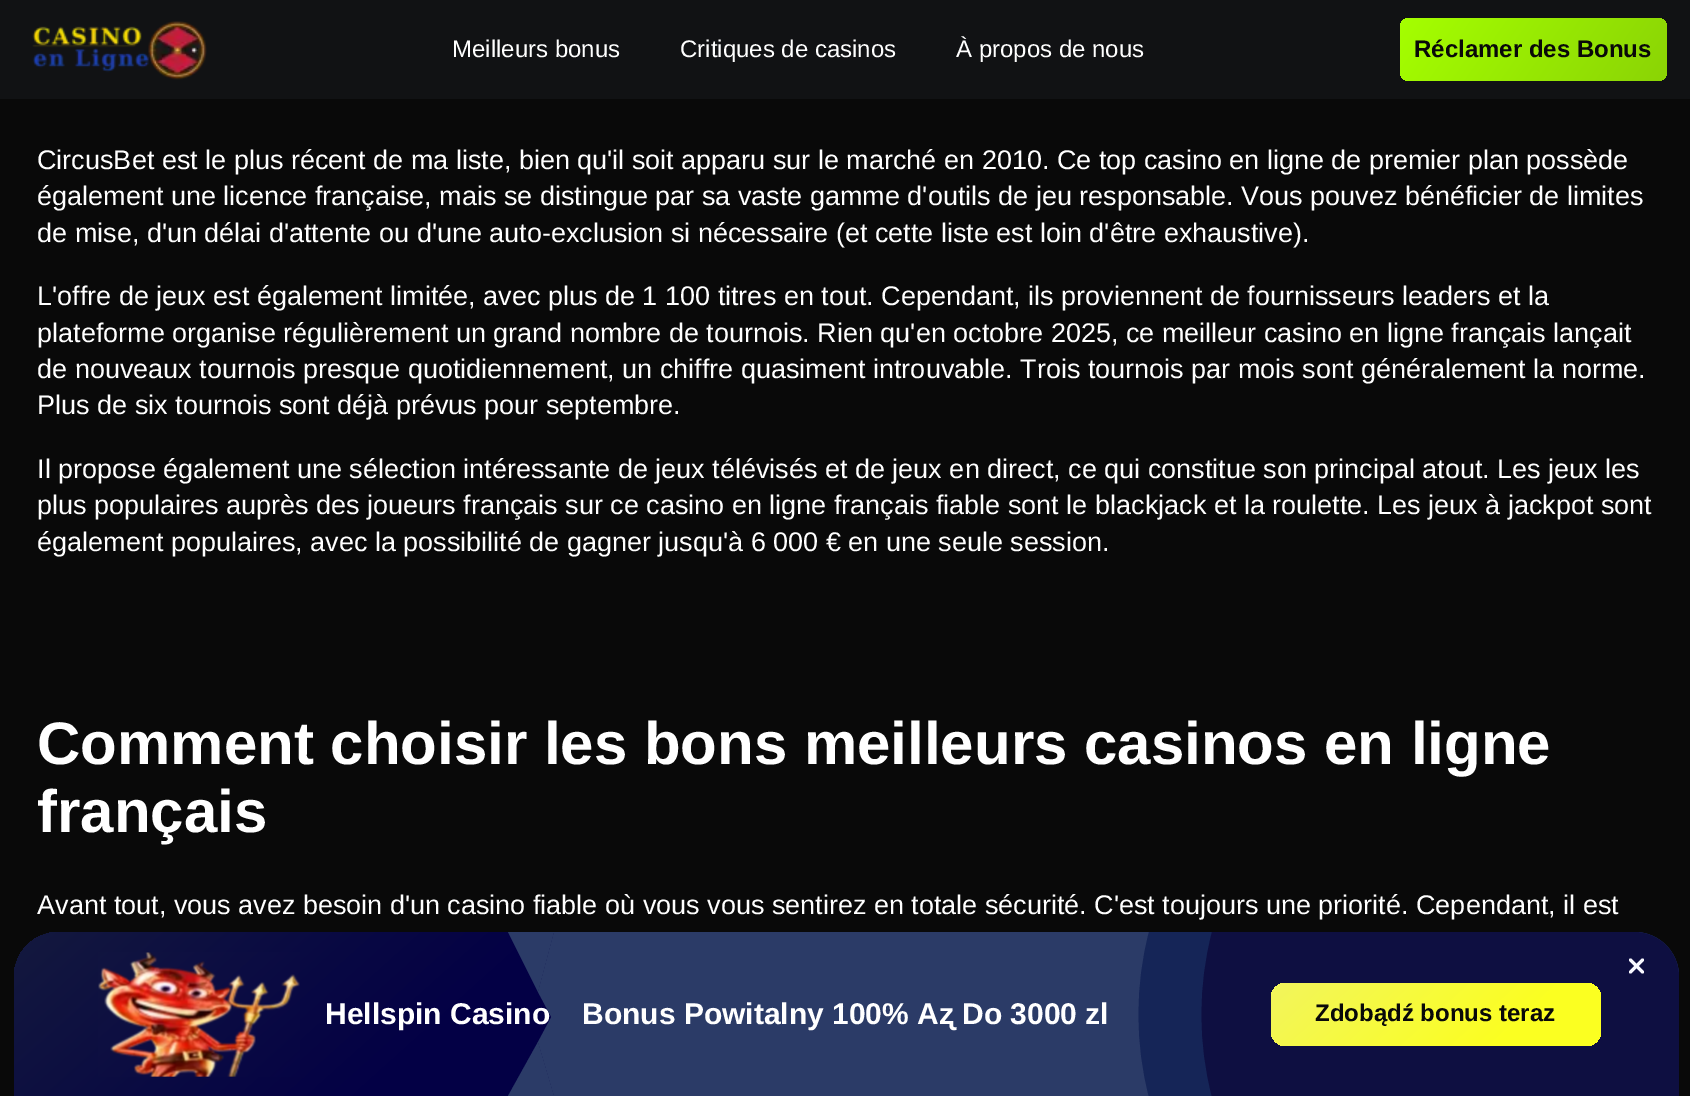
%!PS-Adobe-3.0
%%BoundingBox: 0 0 1690 1096
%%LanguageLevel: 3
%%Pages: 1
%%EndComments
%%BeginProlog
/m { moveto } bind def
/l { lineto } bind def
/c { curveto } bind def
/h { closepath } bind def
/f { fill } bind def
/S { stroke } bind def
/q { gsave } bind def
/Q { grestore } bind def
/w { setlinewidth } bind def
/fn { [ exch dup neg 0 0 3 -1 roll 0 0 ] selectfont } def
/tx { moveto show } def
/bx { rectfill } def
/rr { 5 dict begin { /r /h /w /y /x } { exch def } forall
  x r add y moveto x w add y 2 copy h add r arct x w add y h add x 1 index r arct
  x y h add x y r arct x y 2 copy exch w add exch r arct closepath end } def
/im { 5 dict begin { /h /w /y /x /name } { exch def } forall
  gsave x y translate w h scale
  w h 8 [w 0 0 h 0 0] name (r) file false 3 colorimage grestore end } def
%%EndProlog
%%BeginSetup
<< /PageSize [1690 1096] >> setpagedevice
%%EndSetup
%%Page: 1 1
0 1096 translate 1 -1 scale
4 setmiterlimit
0.035 setgray
0 0 1690 1096 bx
0.067 0.071 0.078 setrgbcolor
0 0 1690 99 bx
(image0.raw) 32 21 175 59 im
/LiberationSans-Regular 24 fn
1 setgray
(Meilleurs bonus) 452 57 tx
(Critiques de casinos) 680 57 tx
(À propos de nous) 956 57 tx
q 1400 18 267 63 9 rr clip newpath
<< /ShadingType 2 /ColorSpace /DeviceRGB /Coords [1429 -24 1637 123] /Extend [true true] /Function << /FunctionType 2 /Domain [0 1] /C0 [0.647 1 0] /C1 [0.545 0.831 0.02] /N 1 >> >> shfill Q
/LiberationSans-Bold 24 fn
0.035 setgray
(Réclamer des Bonus) 1414 57 tx
/LiberationSans-Regular 27 fn
1 setgray
(CircusBet est le plus récent de ma liste, bien qu'il soit apparu sur le marché en 2010. Ce top casino en ligne de premier plan possède) 37 169 tx
(également une licence française, mais se distingue par sa vaste gamme d'outils de jeu responsable. Vous pouvez bénéficier de limites) 37 205 tx
(de mise, d'un délai d'attente ou d'une auto-exclusion si nécessaire \(et cette liste est loin d'être exhaustive\).) 37 242 tx
(L'offre de jeux est également limitée, avec plus de 1 100 titres en tout. Cependant, ils proviennent de fournisseurs leaders et la) 37 305 tx
(plateforme organise régulièrement un grand nombre de tournois. Rien qu'en octobre 2025, ce meilleur casino en ligne français lançait) 37 342 tx
(de nouveaux tournois presque quotidiennement, un chiffre quasiment introuvable. Trois tournois par mois sont généralement la norme.) 37 378 tx
(Plus de six tournois sont déjà prévus pour septembre.) 37 414 tx
(Il propose également une sélection intéressante de jeux télévisés et de jeux en direct, ce qui constitue son principal atout. Les jeux les) 37 478 tx
(plus populaires auprès des joueurs français sur ce casino en ligne français fiable sont le blackjack et la roulette. Les jeux à jackpot sont) 37 514 tx
(également populaires, avec la possibilité de gagner jusqu'à 6 000 € en une seule session.) 37 551 tx
/LiberationSans-Bold 60 fn
(Comment choisir les bons meilleurs casinos en ligne) 37 764 tx
(français) 37 832 tx
/LiberationSans-Regular 27 fn
(Avant tout, vous avez besoin d'un casino fiable où vous vous sentirez en totale sécurité. C'est toujours une priorité. Cependant, il est) 37 914 tx
0.169 0.231 0.404 setrgbcolor
59 932 m 1634 932 l 1659 932 1679 952 1679 977 c 1679 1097 l 14 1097 l 14 977 l 14 952 34 932 59 932 c h f
0.082 0.145 0.341 setrgbcolor
1149 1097 m 1679 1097 l 1679 977 l 1679 952 1659 932 1634 932 c 1149 932 l 1135 985 1135 1044 1149 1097 c h f
0.055 0.059 0.255 setrgbcolor
1212 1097 m 1679 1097 l 1679 977 l 1679 952 1659 932 1634 932 c 1212 932 l 1198 986 1198 1043 1212 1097 c h f
0.973 0.973 1 setrgbcolor
3 w
1 setlinecap
1 setlinejoin
1642.5 960 m 1630.5 972 l 1630.5 960 m 1642.5 972 l S
q 59 932 m 554 932 l 554 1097 l 14 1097 l 14 977 l 14 952 34 932 59 932 c h clip newpath
<< /ShadingType 2 /ColorSpace /DeviceRGB /Coords [122 834 445 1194] /Extend [true true] /Function << /FunctionType 3 /Domain [0 1] /Functions [<< /FunctionType 2 /Domain [0 1] /C0 [0.078 0.098 0.243] /C1 [0.012 0 0.271] /N 1 >> << /FunctionType 2 /Domain [0 1] /C0 [0.012 0 0.271] /C1 [0.012 0 0.271] /N 1 >>] /Bounds [0.74] /Encode [0 1 0 1] >> >> shfill Q
(image1.raw) 98 952 202 125 im
0.169 0.231 0.404 setrgbcolor
508 932 m 554 932 l 538 992 l h f
/LiberationSans-Bold 30 fn
1 setgray
(Hellspin Casino) 325 1024 tx
0.169 0.231 0.404 setrgbcolor
554 932 m 554 1022 l 538 992 l h f
554 1012 m 554 1096 l 538 1042 l h f
554 1096 m 508 1096 l 538 1042 l h f
1 setgray
(Bonus Powitalny 100% Aʐ Do 3000 zl) 582 1024 tx
q 1271 983 330 63 15 rr clip newpath
<< /ShadingType 2 /ColorSpace /DeviceRGB /Coords [1346 915 1525 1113] /Extend [true true] /Function << /FunctionType 3 /Domain [0 1] /Functions [<< /FunctionType 2 /Domain [0 1] /C0 [0.949 0.961 0.365] /C1 [0.984 1 0.129] /N 1 >> << /FunctionType 2 /Domain [0 1] /C0 [0.984 1 0.129] /C1 [0.984 1 0.129] /N 1 >>] /Bounds [0.74] /Encode [0 1 0 1] >> >> shfill Q
/LiberationSans-Bold 24 fn
0.035 setgray
(Zdobądź bonus teraz) 1315 1021 tx
showpage
%%EOF
